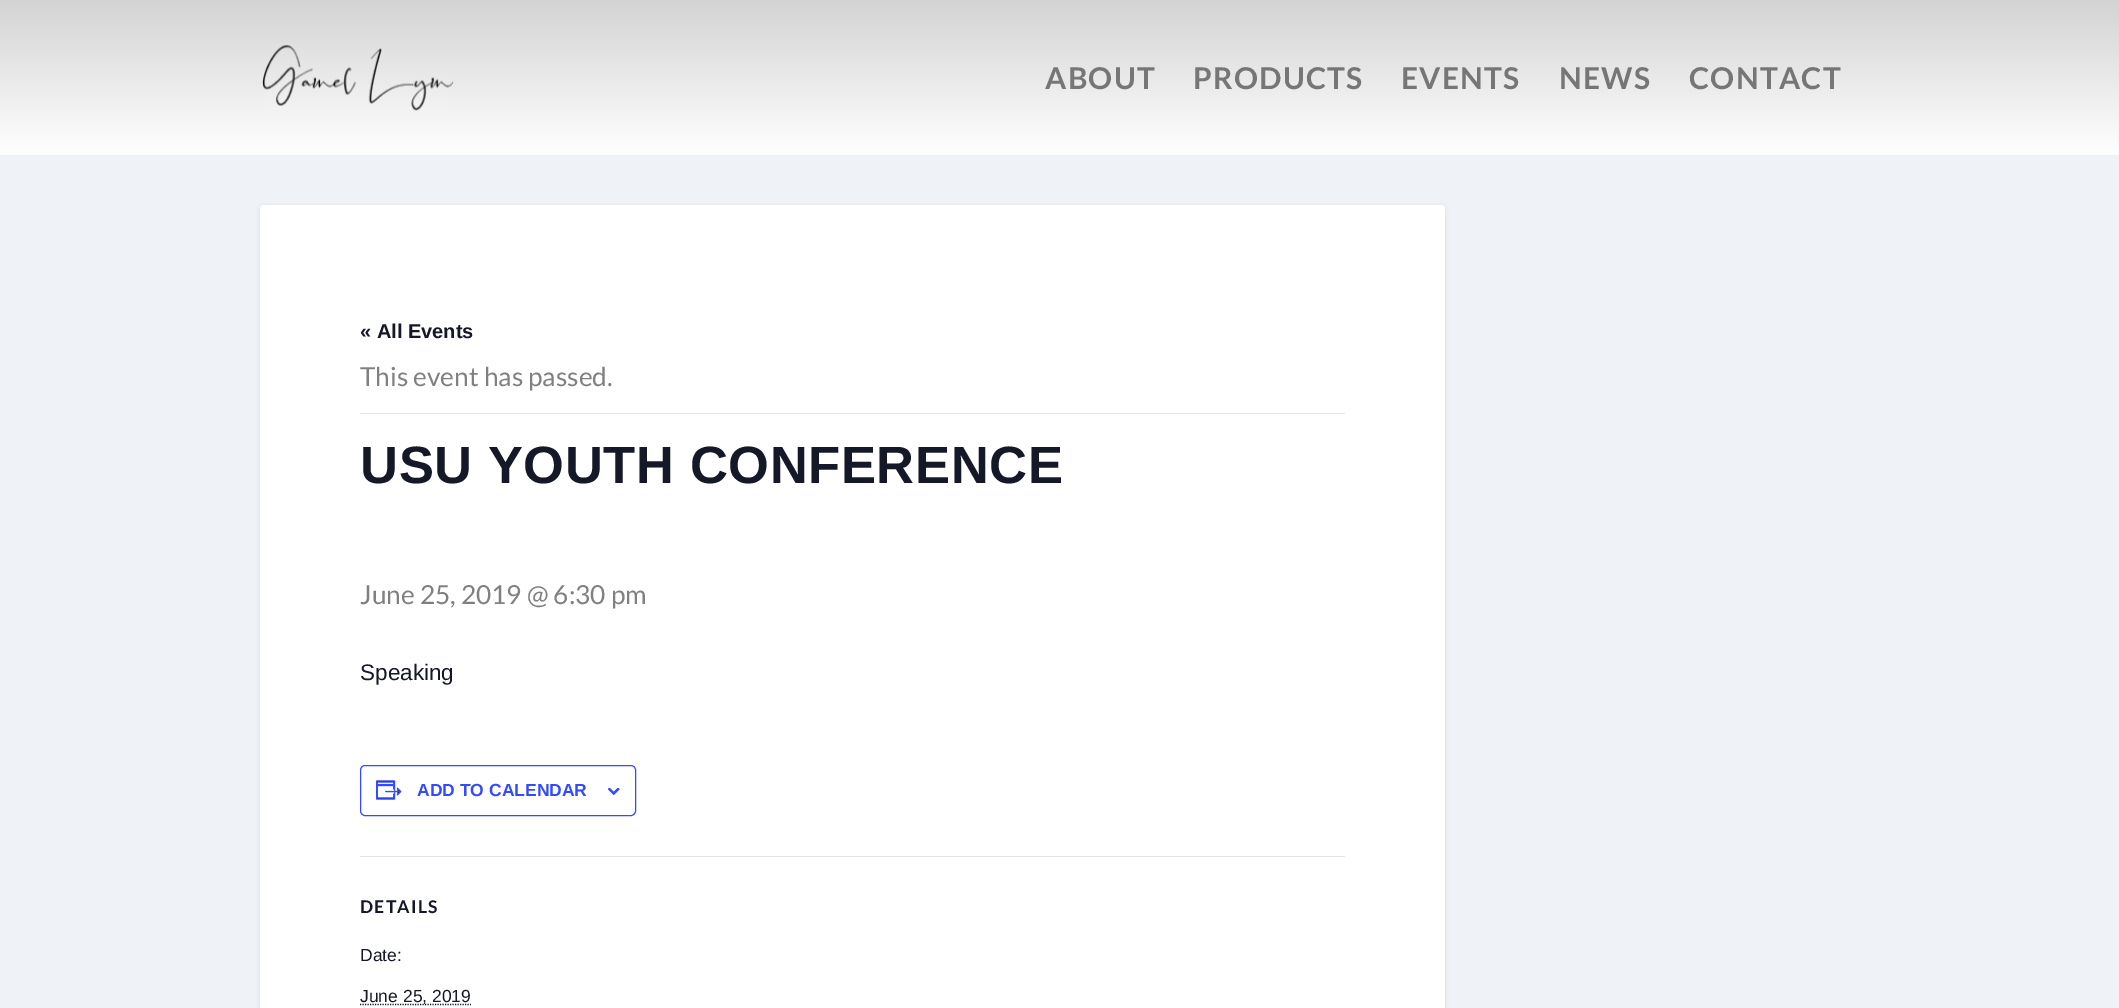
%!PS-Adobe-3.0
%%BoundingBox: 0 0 2119 1008
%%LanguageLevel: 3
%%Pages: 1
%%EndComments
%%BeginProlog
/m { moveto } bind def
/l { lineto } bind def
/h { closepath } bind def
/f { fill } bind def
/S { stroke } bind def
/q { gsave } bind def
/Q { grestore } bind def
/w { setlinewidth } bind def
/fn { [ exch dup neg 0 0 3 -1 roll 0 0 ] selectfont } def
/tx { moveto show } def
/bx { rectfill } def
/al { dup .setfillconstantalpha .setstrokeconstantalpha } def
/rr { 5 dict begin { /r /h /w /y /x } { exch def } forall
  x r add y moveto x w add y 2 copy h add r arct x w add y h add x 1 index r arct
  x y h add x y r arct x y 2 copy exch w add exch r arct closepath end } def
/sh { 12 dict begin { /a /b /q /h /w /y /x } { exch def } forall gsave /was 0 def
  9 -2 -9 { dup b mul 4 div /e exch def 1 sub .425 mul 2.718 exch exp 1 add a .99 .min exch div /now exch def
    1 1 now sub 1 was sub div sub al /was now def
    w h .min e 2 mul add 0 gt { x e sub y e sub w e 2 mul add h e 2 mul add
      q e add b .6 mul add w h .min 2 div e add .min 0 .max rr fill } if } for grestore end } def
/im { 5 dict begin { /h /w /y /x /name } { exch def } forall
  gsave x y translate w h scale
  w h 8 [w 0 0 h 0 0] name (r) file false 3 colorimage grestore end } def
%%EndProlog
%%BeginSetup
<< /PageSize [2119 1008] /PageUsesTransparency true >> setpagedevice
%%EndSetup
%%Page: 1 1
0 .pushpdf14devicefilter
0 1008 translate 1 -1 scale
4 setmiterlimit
0.937 0.949 0.969 setrgbcolor
0 0 2119 1008 bx
q 0 0 m 2119 0 l 2119 155 l 0 155 l h clip newpath
<< /ShadingType 2 /ColorSpace /DeviceRGB /Coords [1060 0 1060 155] /Extend [true true] /Function << /FunctionType 2 /Domain [0 1] /C0 [0.827 0.827 0.827] /C1 [1 1 1] /N 1 >> >> shfill Q
(image0.raw) 262 44 192 67 im
/Lato-Bold 30 fn
0.463 0.463 0.467 setrgbcolor
1045 89 m 1.25 0 (ABOUT) ashow
1193 89 m 1.25 0 (PRODUCTS) ashow
1401 89 m 1.25 0 (EVENTS) ashow
1559 89 m 1.25 0 (NEWS) ashow
1689 89 m 1.25 0 (CONTACT) ashow
0 setgray
260 206 1185 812 4 2 0.1 sh
1 setgray
260 205 1185 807 4 rr f
/LiberationSans-Bold 20 fn
0.078 0.094 0.153 setrgbcolor
(« All Events) 360 338 tx
0.894 setgray
360 413 985 1 bx
/Lato-Regular 26.25 fn
0.502 setgray
(This event has passed.) 360 386 tx
/LiberationSans-Bold 52.5 fn
0.078 0.094 0.153 setrgbcolor
360 483 m 0.6 0 (USU YOUTH CONFERENCE) ashow
/Lato-Regular 26.25 fn
0.502 setgray
(June 25, 2019 @ 6:30 pm) 360 604 tx
/LiberationSans-Regular 22.5 fn
0.078 0.094 0.153 setrgbcolor
(Speaking) 360 680 tx
0.2 0.29 1 setrgbcolor
360.5 765.5 275 50 4.5 rr S
(image1.raw) 376 780 26 20 im
/LiberationSans-Bold 17.5 fn
(ADD TO CALENDAR) 417 796 tx
(image2.raw) 608 788 12 7 im
0.894 setgray
360 856 985 1 bx
/Lato-Bold 17.5 fn
0.078 0.094 0.153 setrgbcolor
360 913 m 1.25 0 (DETAILS) ashow
/LiberationSans-Regular 17.5 fn
(Date:) 360 961 tx
1.2 w
[1.25 1.25] 0 setdash
360 1004.5 m 471 1004.5 l S
(June 25, 2019) 360 1002 tx
.poppdf14devicefilter showpage
%%EOF
